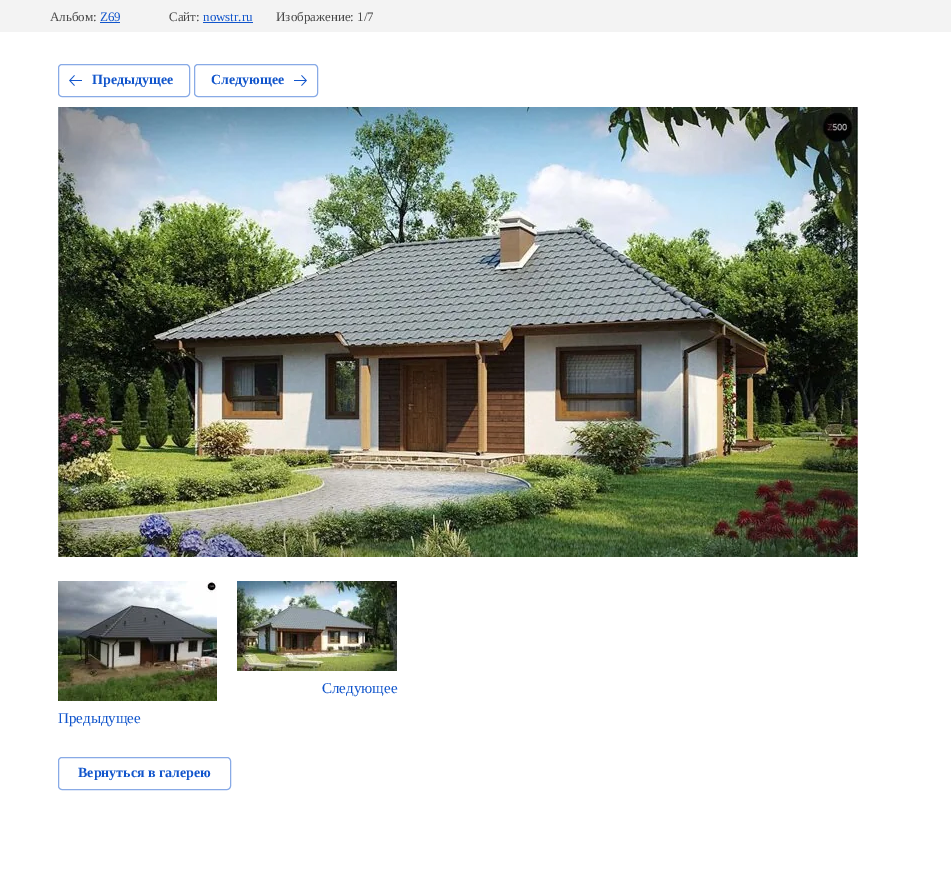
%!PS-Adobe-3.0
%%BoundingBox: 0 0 951 877
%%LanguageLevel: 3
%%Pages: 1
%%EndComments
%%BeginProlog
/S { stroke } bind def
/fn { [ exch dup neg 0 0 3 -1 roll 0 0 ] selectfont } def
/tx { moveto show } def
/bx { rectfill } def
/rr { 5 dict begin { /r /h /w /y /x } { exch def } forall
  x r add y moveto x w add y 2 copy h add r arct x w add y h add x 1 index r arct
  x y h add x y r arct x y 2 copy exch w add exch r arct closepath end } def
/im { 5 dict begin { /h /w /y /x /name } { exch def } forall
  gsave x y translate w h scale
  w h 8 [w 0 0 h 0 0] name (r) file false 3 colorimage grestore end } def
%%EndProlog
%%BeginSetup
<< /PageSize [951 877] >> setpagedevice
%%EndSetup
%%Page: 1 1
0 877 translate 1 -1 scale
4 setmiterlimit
1 setgray
0 0 951 877 bx
0.953 setgray
0 0 951 32 bx
/LiberationSerif-Regular 13 fn
0.282 setgray
(Альбом:) 50 21 tx
0.067 0.333 0.8 setrgbcolor
(Z69) 100 21 tx
100 22 20 1 bx
0.282 setgray
(Сайт:) 169 21 tx
0.067 0.333 0.8 setrgbcolor
(nowstr.ru) 203 21 tx
203 22 50 1 bx
0.282 setgray
(Изображение: 1/7) 276 21 tx
0.533 0.667 0.902 setrgbcolor
58.5 64.5 131 32 3.5 rr S
(image0.raw) 69 75 13 11 im
/LiberationSerif-Bold 14 fn
0.067 0.333 0.8 setrgbcolor
(Предыдущее) 92 84 tx
0.533 0.667 0.902 setrgbcolor
194.5 64.5 123 32 3.5 rr S
0.067 0.333 0.8 setrgbcolor
(Следующее) 211 84 tx
(image1.raw) 294 75 13 11 im
(image2.raw) 58 107 800 450 im
(image3.raw) 237 581 160 90 im
/LiberationSerif-Regular 15 fn
(Следующее) 322 693 tx
(image4.raw) 58 581 159 120 im
(Предыдущее) 58 723 tx
0.533 0.667 0.902 setrgbcolor
58.5 757.5 172 32 3.5 rr S
/LiberationSerif-Bold 14 fn
0.067 0.333 0.8 setrgbcolor
(Вернуться в галерею) 78 777 tx
showpage
%%EOF
